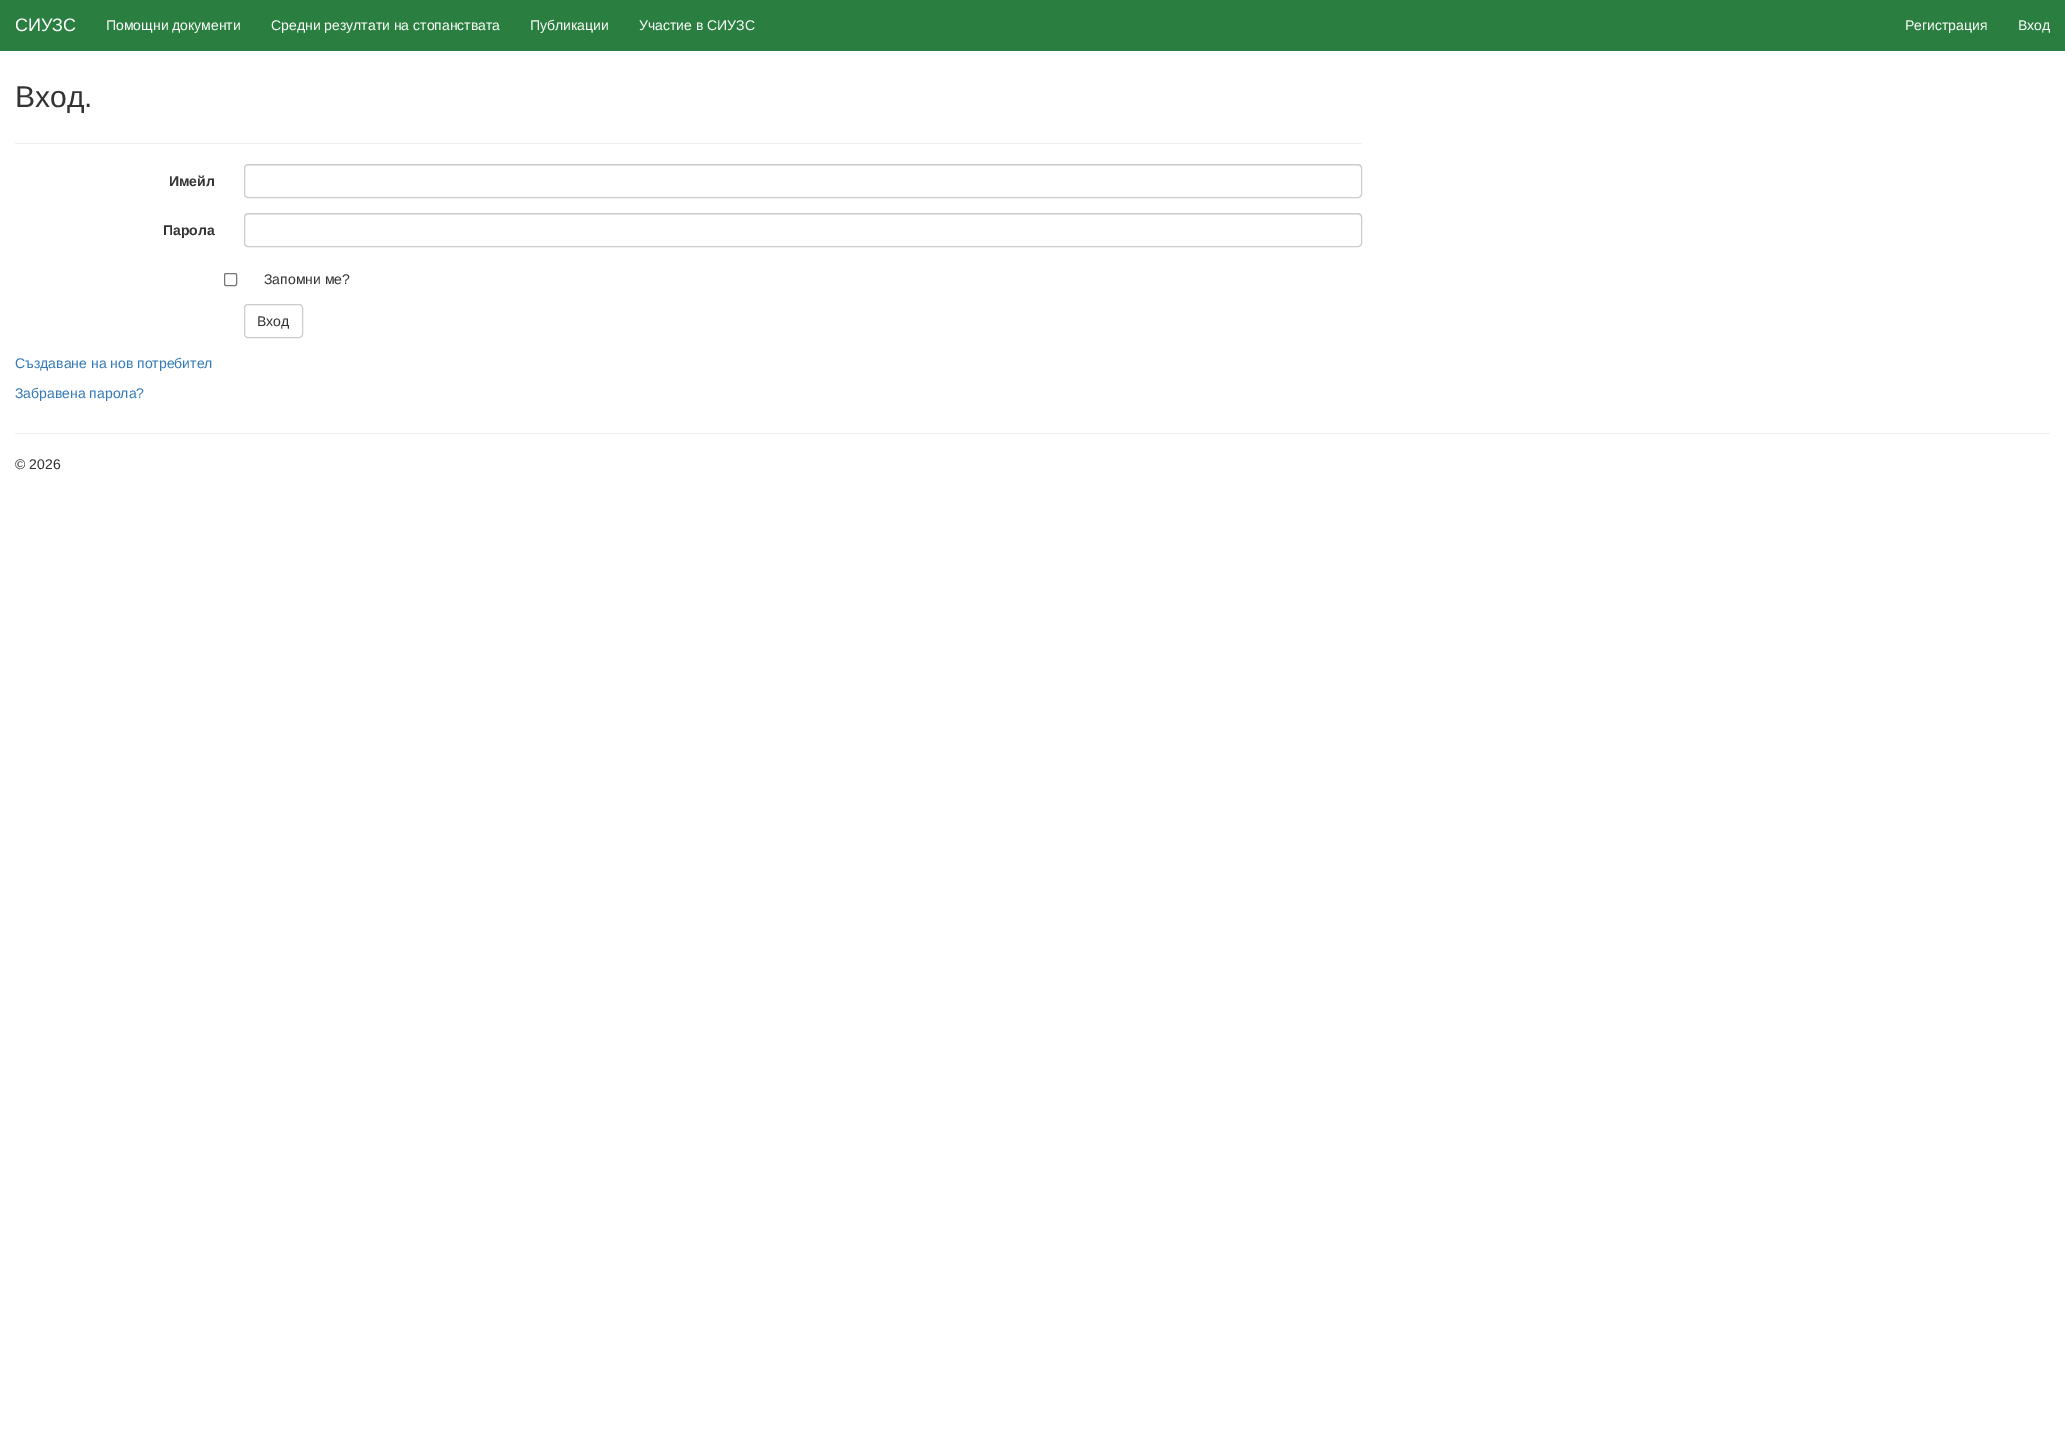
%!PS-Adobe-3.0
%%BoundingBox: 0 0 2065 1449
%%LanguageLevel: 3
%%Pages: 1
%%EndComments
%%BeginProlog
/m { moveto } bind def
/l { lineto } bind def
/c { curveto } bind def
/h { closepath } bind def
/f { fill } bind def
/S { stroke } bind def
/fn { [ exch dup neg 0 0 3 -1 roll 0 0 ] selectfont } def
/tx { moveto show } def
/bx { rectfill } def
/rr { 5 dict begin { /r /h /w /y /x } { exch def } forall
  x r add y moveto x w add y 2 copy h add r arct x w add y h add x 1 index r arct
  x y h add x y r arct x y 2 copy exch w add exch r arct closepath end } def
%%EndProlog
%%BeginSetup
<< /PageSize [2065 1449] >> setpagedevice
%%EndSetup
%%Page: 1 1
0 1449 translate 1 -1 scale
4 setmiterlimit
1 setgray
0 0 2065 1449 bx
0.165 0.498 0.251 setrgbcolor
0 0 2065 51 bx
/LiberationSans-Regular 18 fn
1 setgray
(СИУЗС) 15 31 tx
/LiberationSans-Regular 14 fn
(Помощни документи) 106 30 tx
(Средни резултати на стопанствата) 271 30 tx
(Публикации) 530 30 tx
(Участие в СИУЗС) 639 30 tx
(Регистрация) 1905 30 tx
(Вход) 2018 30 tx
/LiberationSans-Regular 30 fn
0.2 setgray
(Вход.) 15 107 tx
0.933 setgray
15 143 1347 1 bx
/LiberationSans-Bold 14 fn
0.2 setgray
(Имейл) 169 186 tx
0.925 setgray
248 166 m 1358 166 l 1360 166 1361 167 1361 169 c 1361 168 l 1361 166 1360 165 1358 165 c 248 165 l 246 165 245 166 245 168 c 245 169 l 245 167 246 166 248 166 c h f
0.8 setgray
244.5 164.5 1117 33 3.5 rr S
0.2 setgray
(Парола) 163 235 tx
0.925 setgray
248 215 m 1358 215 l 1360 215 1361 216 1361 218 c 1361 217 l 1361 215 1360 214 1358 214 c 248 214 l 246 214 245 215 245 217 c 245 218 l 245 216 246 215 248 215 c h f
0.8 setgray
244.5 213.5 1117 33 3.5 rr S
0.463 setgray
224.5 273.5 12 12 1.5 rr S
/LiberationSans-Regular 14 fn
0.2 setgray
(Запомни ме?) 264 284 tx
0.8 setgray
244.5 304.5 58 33 3.5 rr S
0.2 setgray
(Вход) 257 326 tx
0.2 0.478 0.718 setrgbcolor
(Създаване на нов потребител) 15 368 tx
(Забравена парола?) 15 398 tx
0.933 setgray
15 433 2035 1 bx
0.2 setgray
(© 2026) 15 469 tx
showpage
%%EOF
